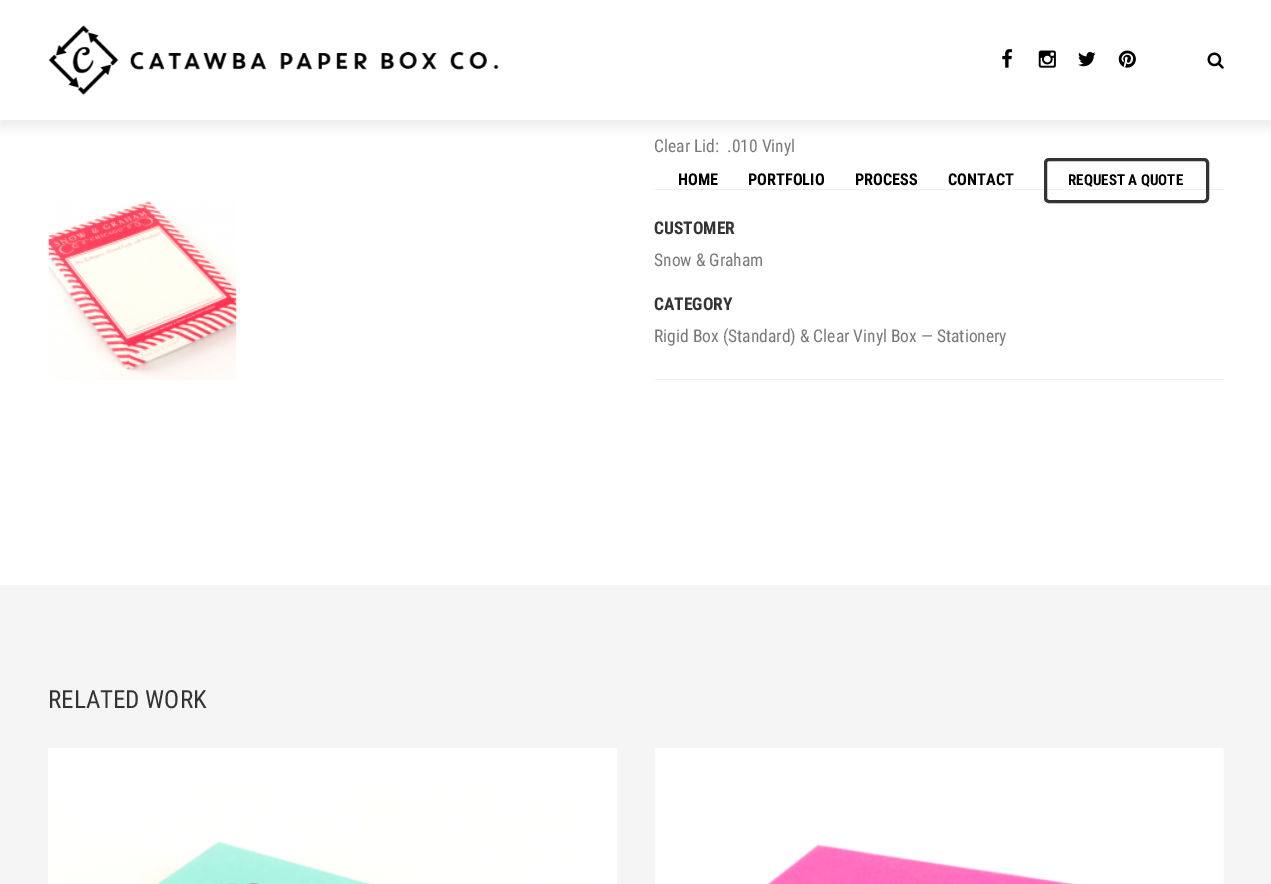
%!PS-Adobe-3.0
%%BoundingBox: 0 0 1271 884
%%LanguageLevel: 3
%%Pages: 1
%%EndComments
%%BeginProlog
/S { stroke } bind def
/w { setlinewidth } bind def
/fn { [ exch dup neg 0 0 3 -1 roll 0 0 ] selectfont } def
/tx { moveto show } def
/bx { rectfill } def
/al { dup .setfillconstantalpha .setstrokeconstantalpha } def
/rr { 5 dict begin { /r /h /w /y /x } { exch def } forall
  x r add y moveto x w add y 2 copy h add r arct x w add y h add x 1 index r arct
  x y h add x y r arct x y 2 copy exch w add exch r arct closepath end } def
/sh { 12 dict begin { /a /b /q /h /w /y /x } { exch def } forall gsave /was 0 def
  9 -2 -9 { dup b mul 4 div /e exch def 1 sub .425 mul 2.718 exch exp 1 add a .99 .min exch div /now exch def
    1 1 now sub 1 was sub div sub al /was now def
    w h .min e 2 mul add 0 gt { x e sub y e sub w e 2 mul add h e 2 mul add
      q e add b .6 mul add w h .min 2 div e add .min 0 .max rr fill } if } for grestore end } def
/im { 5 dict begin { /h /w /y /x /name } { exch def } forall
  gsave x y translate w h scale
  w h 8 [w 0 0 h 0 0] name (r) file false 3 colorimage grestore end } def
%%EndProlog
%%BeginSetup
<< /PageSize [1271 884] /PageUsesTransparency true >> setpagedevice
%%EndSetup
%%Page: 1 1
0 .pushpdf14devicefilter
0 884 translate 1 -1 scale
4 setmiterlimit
1 setgray
0 0 1271 884 bx
(image0.raw) 48 201 189 179 im
/RobotoCondensed-Regular 17.5 fn
0.475 setgray
(Clear Lid:  .010 Vinyl) 654 152 tx
0.933 setgray
655 189 569 1 bx
/RobotoCondensed-Bold 17.5 fn
0.2 setgray
(CUSTOMER) 654 234 tx
/RobotoCondensed-Regular 17.5 fn
0.475 setgray
(Snow & Graham) 654 266 tx
/RobotoCondensed-Bold 17.5 fn
0.2 setgray
(CATEGORY) 654 310 tx
/RobotoCondensed-Regular 17.5 fn
0.475 setgray
(Rigid Box \(Standard\) & Clear Vinyl Box — Stationery) 654 342 tx
0.933 setgray
655 379 569 1 bx
0.196 setgray
0 6 1271 120 0 6 0.1 sh
1 setgray
0 0 1271 120 bx
(image1.raw) 48 25 451 70 im
(image2.raw) 1002 49 10 19 im
(image3.raw) 1038 50 18 18 im
(image4.raw) 1078 52 18 15 im
(image5.raw) 1118 50 18 18 im
(image6.raw) 1207 52 17 17 im
/RobotoCondensed-Bold 16.25 fn
0 setgray
(HOME) 678 185 tx
(PORTFOLIO) 748 185 tx
(PROCESS) 855 185 tx
(CONTACT) 948 185 tx
0.2 setgray
3 w
1045.5 159.5 162 42 3.5 rr S
/RobotoCondensed-Bold 15 fn
0 setgray
(REQUEST A QUOTE) 1068 185 tx
0.961 setgray
0 585 1271 299 bx
/RobotoCondensed-Regular 25 fn
0.2 setgray
(RELATED WORK) 48 708 tx
(image7.raw) 48 748 570 136 im
(image8.raw) 655 748 569 136 im
.poppdf14devicefilter showpage
%%EOF
